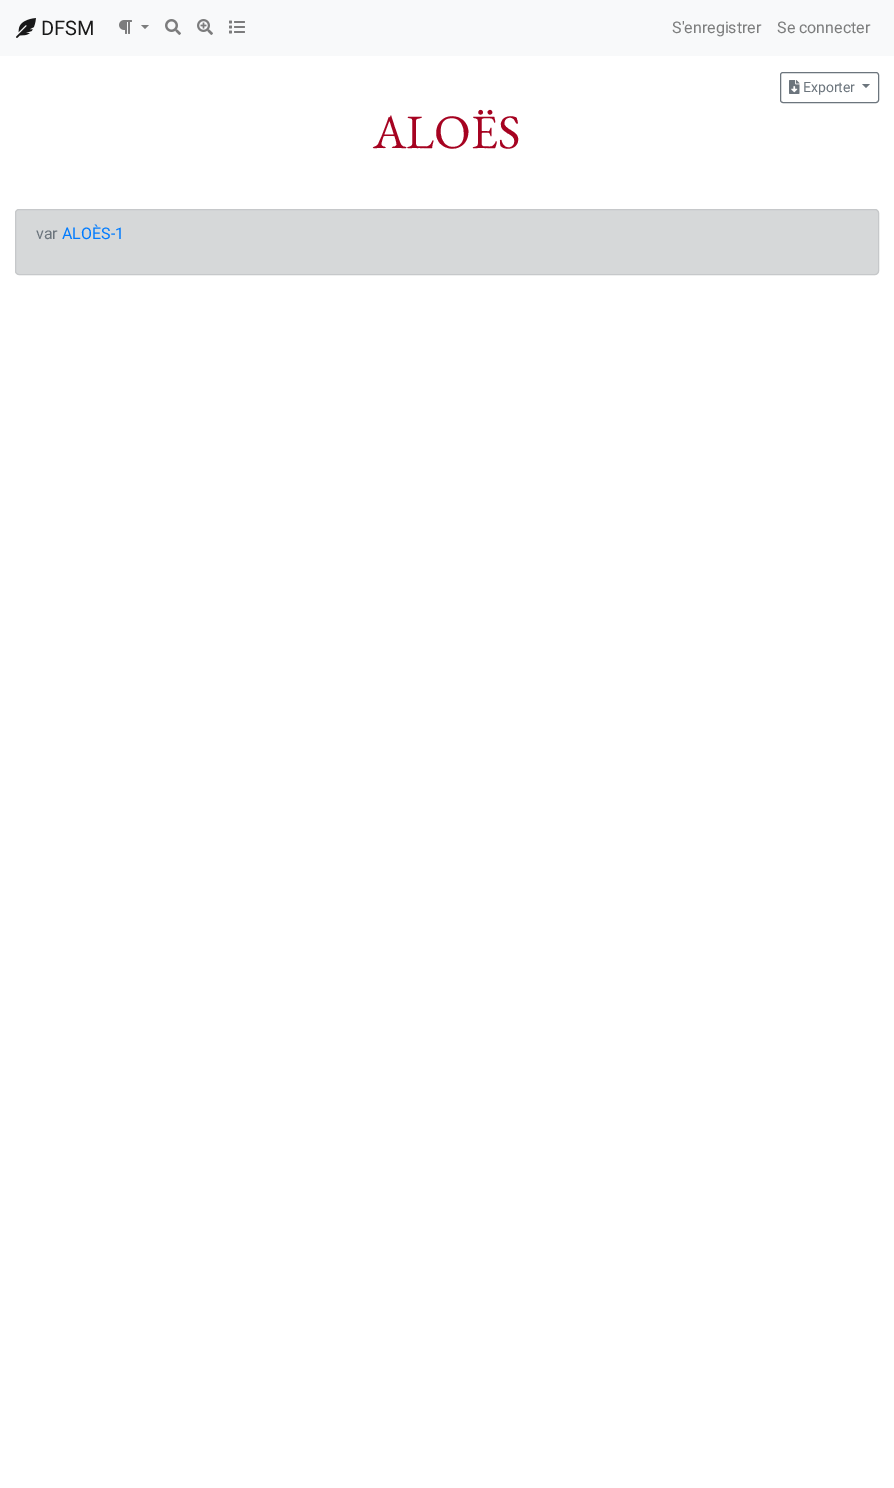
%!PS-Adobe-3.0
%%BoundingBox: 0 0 894 1488
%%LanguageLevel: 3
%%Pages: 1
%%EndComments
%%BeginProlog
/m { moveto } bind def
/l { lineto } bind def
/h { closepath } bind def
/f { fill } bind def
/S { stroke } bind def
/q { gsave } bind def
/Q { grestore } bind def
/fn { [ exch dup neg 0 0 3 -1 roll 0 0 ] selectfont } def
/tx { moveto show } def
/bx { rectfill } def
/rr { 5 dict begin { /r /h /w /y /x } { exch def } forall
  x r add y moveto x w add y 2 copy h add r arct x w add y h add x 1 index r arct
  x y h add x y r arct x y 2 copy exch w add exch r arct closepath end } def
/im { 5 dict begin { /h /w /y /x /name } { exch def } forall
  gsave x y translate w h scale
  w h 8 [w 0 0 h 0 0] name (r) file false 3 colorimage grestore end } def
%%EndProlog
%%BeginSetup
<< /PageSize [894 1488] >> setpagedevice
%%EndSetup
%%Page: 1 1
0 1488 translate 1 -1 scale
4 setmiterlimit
1 setgray
0 0 894 1488 bx
0.973 0.976 0.98 setrgbcolor
0 0 894 56 bx
(image0.raw) 16 18 20 20 im
/Roboto-Regular 20 fn
0.098 setgray
(DFSM) 41 35 tx
(image1.raw) 119 20 13 14 im
0.486 0.49 0.49 setrgbcolor
141 25 m 149 25 l 145 29 l h f
(image2.raw) 165 19 16 16 im
(image3.raw) 197 19 16 16 im
(image4.raw) 229 20 16 14 im
/Roboto-Regular 16 fn
(S'enregistrer) 672 33 tx
(Se connecter) 777 33 tx
0.424 0.459 0.49 setrgbcolor
780.5 72.5 98 30 2.5 rr S
(image5.raw) 789 80 11 14 im
/Roboto-Regular 14 fn
(Exporter) 803 92 tx
862 84 m 870 84 l 866 88 l h f
/EBGaramond-Regular 48 fn
0.651 0.012 0.129 setrgbcolor
(ALOËS) 373 148 tx
0.839 0.847 0.851 setrgbcolor
15.5 209.5 863 65 3.5 rr q f Q
0.776 0.784 0.792 setrgbcolor
S
/Roboto-Regular 16 fn
0.424 0.459 0.49 setrgbcolor
(var) 36 239 tx
0 0.482 1 setrgbcolor
(ALOÈS-1) 62 239 tx
showpage
%%EOF
